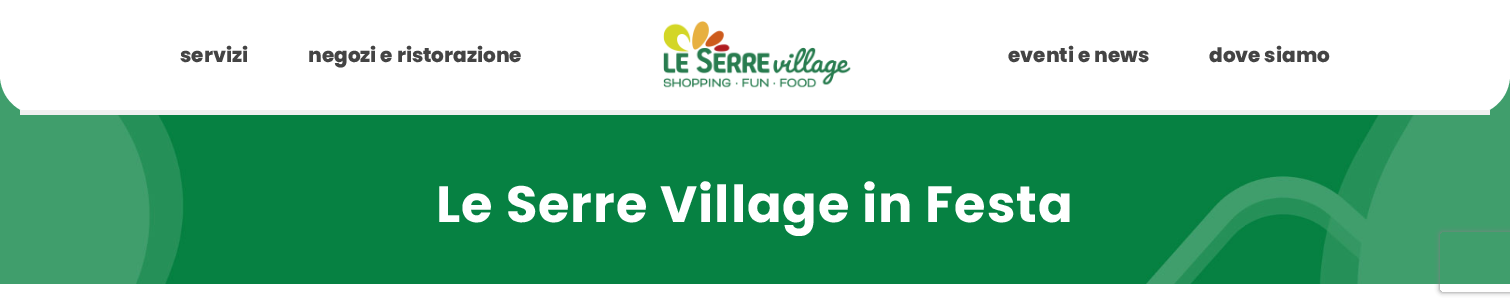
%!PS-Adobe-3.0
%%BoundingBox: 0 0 1510 306
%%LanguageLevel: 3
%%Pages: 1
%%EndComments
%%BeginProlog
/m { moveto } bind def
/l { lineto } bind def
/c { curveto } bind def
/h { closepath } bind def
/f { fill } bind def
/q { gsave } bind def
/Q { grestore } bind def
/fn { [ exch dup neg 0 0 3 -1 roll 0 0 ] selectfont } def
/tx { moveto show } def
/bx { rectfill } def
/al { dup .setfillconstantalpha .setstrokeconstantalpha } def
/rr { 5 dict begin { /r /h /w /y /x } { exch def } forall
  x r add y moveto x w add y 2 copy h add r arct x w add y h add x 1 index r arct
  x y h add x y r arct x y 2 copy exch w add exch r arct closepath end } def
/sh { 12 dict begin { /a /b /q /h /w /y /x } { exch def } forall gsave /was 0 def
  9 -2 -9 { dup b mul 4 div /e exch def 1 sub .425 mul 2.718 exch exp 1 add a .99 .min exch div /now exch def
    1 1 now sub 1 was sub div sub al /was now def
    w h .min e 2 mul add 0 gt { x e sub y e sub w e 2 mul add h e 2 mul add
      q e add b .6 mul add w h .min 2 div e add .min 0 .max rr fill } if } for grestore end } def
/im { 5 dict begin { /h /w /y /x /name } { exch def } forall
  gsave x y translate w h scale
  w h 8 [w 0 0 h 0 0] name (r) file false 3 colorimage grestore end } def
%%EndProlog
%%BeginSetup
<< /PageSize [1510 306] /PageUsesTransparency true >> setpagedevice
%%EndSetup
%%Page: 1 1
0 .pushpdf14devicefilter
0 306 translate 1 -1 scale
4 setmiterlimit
1 setgray
0 0 1510 306 bx
(image1.raw) 0 75 1510 209 im
0 0 m 1510 0 l 1510 75 l 1510 97 1492 115 1470 115 c 40 115 l 18 115 0 97 0 75 c h f
0.941 setgray
20 110 1470 5 bx
/Poppins-ExtraBold 20 fn
0.267 setgray
(servizi) 180 62 tx
(negozi e ristorazione) 308 62 tx
(image0.raw) 663 21 188 67 im
(eventi e news) 1008 62 tx
(dove siamo) 1209 62 tx
/Poppins-Bold 51 fn
1 setgray
436 222 m 1 0 (Le Serre Village in Festa) ashow
q
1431 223 m 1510 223 l 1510 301 l 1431 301 l h 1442 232 m 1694 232 l 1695 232 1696 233 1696 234 c 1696 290 l 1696 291 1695 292 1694 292 c 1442 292 l 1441 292 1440 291 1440 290 c 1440 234 l 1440 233 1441 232 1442 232 c h eoclip newpath
0.502 setgray
1440 232 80 60 2 2.5 1 sh
Q
.poppdf14devicefilter showpage
%%EOF
